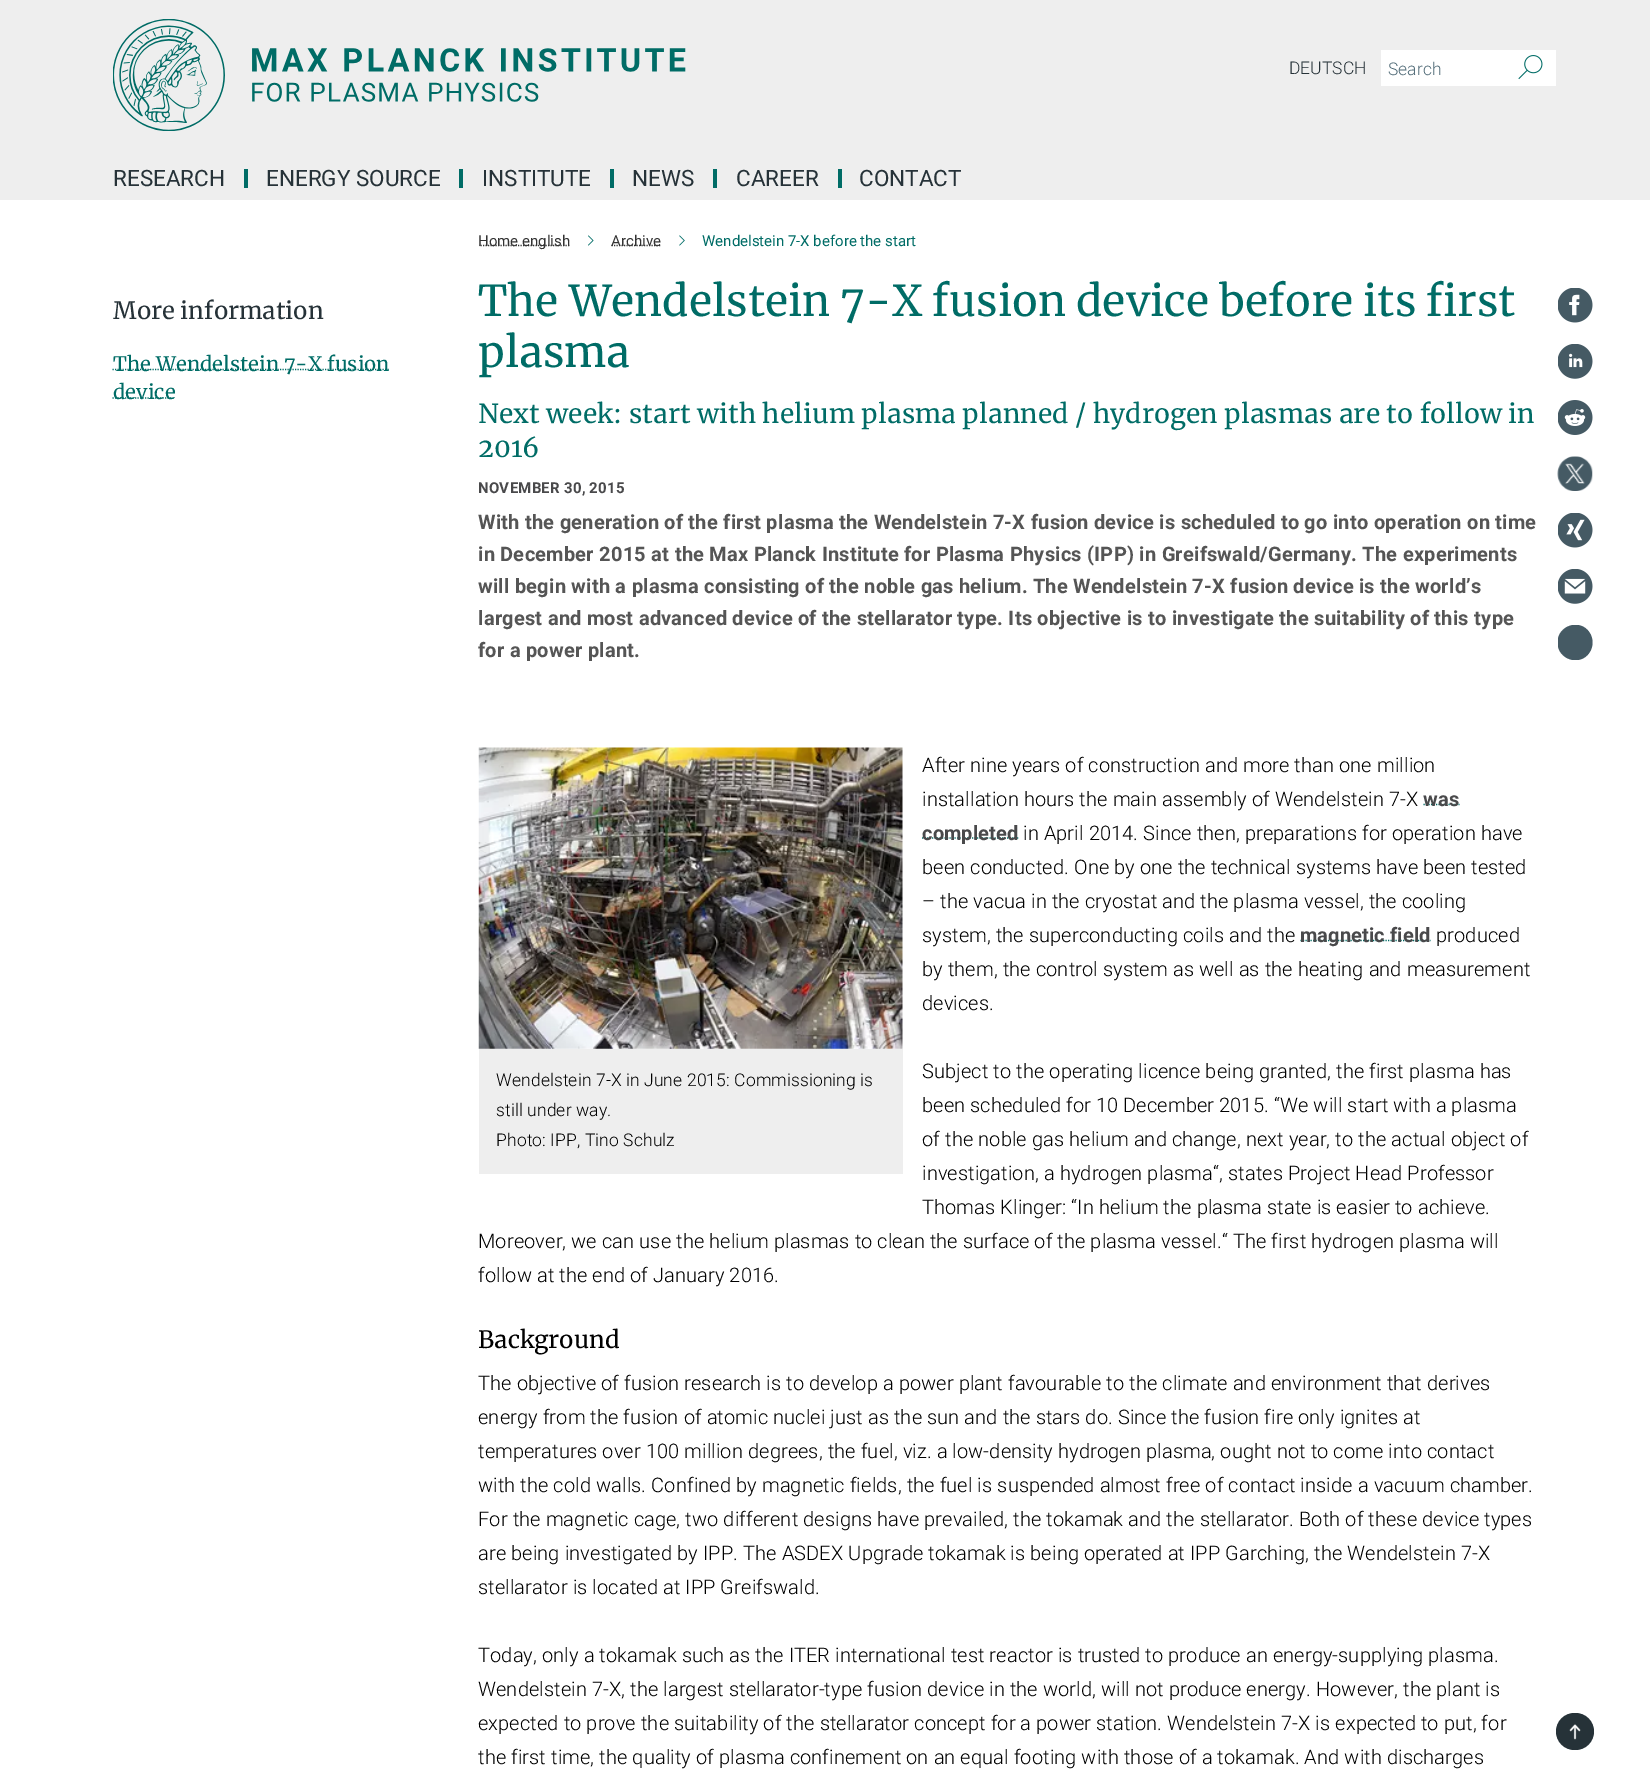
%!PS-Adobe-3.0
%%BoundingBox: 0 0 1650 1771
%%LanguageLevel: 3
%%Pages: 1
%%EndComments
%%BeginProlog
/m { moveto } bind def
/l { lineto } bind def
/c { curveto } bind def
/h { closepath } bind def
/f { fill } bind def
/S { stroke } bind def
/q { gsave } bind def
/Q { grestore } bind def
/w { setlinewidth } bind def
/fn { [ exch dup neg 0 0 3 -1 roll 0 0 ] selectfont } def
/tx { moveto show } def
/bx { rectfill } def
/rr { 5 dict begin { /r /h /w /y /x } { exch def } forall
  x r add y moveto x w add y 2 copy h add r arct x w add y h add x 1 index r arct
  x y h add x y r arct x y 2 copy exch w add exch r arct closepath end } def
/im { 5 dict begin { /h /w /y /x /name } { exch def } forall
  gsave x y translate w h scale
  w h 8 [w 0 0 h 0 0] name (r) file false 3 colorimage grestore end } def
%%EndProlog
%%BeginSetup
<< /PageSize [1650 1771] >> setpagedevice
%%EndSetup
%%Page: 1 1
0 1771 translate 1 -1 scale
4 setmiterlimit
1 setgray
0 0 1650 1771 bx
0.933 setgray
0 0 1650 200 bx
(image0.raw) 113 19 573 112 im
/Roboto-Light 17.5 fn
0.149 0.196 0.22 setrgbcolor
(DEUTSCH) 1289 74 tx
1 setgray
1381 50 175 36 bx
0.329 0.431 0.478 setrgbcolor
(Search) 1388 75 tx
(image1.raw) 1518 55 25 25 im
0 0.424 0.4 setrgbcolor
244 169 4 19 bx
/Roboto-Regular 22.5 fn
0.149 0.196 0.22 setrgbcolor
(RESEARCH) 113 186 tx
0 0.424 0.4 setrgbcolor
459 169 4 19 bx
0.149 0.196 0.22 setrgbcolor
(ENERGY SOURCE) 266 186 tx
0 0.424 0.4 setrgbcolor
610 169 4 19 bx
0.149 0.196 0.22 setrgbcolor
(INSTITUTE) 482 186 tx
0 0.424 0.4 setrgbcolor
713 169 4 19 bx
0.149 0.196 0.22 setrgbcolor
(NEWS) 632 186 tx
0 0.424 0.4 setrgbcolor
838 169 4 19 bx
0.149 0.196 0.22 setrgbcolor
(CAREER) 736 186 tx
(CONTACT) 859 186 tx
/Merriweather-Regular 23.75 fn
(More information) 113 319 tx
0 0.424 0.4 setrgbcolor
1.2 w
[1.25 1.25] 0 setdash
112.5 369.5 m 389 369.5 l S
/Merriweather-Regular 20 fn
(The Wendelstein 7-X fusion) 113 371 tx
112.5 398 m 175 398 l S
(device) 113 399 tx
q
479 203 1059 73 rectclip
0.2 setgray
478 245.5 m 570 245.5 l S
Q
/Roboto-Regular 15 fn
0.2 setgray
(Home english) 478 246 tx
(image2.raw) 588 235 6 11 im
611.5 245.5 m 661 245.5 l S
(Archive) 611 246 tx
(image3.raw) 679 235 6 11 im
0 0.424 0.4 setrgbcolor
(Wendelstein 7-X before the start) 702 246 tx
/Merriweather-Regular 42.5 fn
(The Wendelstein 7-X fusion device before its first) 478 316 tx
(plasma) 478 367 tx
(image4.raw) 1558 288 35 35 im
(image5.raw) 1558 344 35 35 im
(image6.raw) 1558 400 35 35 im
(image7.raw) 1557 456 36 35 im
(image8.raw) 1558 513 35 35 im
(image9.raw) 1558 569 35 35 im
q
1558 625 35 35 rectclip
0.271 0.353 0.392 setrgbcolor
1592.5 642.5 m 1592.5 646 1591.5 649.5 1589.5 652.5 c 1580 667 1557.5 659.5 1557.5 642.5 c 1557.5 625.5 1580 618 1589.5 632.5 c 1591.5 635.5 1592.5 639 1592.5 642.5 c h f
Q
/Merriweather-Regular 26.25 fn
478 423 m 0.12 0 (Next week: start with helium plasma planned / hydrogen plasmas are to follow in) ashow
478 457 m 0.12 0 (2016) ashow
/Roboto-Bold 15 fn
0.286 0.286 0.294 setrgbcolor
478 493 m 0.25 0 (NOVEMBER 30, 2015) ashow
/Roboto-Bold 20 fn
0.333 setgray
478 529 m 0.25 0 (With the generation of the first plasma the Wendelstein 7-X fusion device is scheduled to go into operation on time) ashow
478 561 m 0.25 0 (in December 2015 at the Max Planck Institute for Plasma Physics \(IPP\) in Greifswald/Germany. The experiments) ashow
478 593 m 0.25 0 (will begin with a plasma consisting of the noble gas helium. The Wendelstein 7-X fusion device is the world’s) ashow
478 625 m 0.25 0 (largest and most advanced device of the stellarator type. Its objective is to investigate the suitability of this type) ashow
478 657 m 0.25 0 (for a power plant.) ashow
/Roboto-Light 20 fn
0 setgray
922 772 m 0.12 0 (After nine years of construction and more than one million) ashow
922 806 m 0.12 0 (installation hours the main assembly of Wendelstein 7-X) ashow
0 0.424 0.4 setrgbcolor
1423.5 804.5 m 1459.5 804.5 l S
/Roboto-Bold 20 fn
0.286 0.286 0.294 setrgbcolor
1423 806 m 0.12 0 (was) ashow
0 0.424 0.4 setrgbcolor
922 838 m 1018.5 838 l S
0.286 0.286 0.294 setrgbcolor
922 840 m 0.12 0 (completed) ashow
/Roboto-Light 20 fn
0 setgray
1023 840 m 0.12 0 (in April 2014. Since then, preparations for operation have) ashow
922 874 m 0.12 0 (been conducted. One by one the technical systems have been tested) ashow
922 908 m 0.12 0 (– the vacua in the cryostat and the plasma vessel, the cooling) ashow
922 942 m 0.12 0 (system, the superconducting coils and the) ashow
0 0.424 0.4 setrgbcolor
1300.5 940.5 m 1431 940.5 l S
/Roboto-Bold 20 fn
0.286 0.286 0.294 setrgbcolor
1300 942 m 0.12 0 (magnetic field) ashow
/Roboto-Light 20 fn
0 setgray
1436 942 m 0.12 0 (produced) ashow
922 976 m 0.12 0 (by them, the control system as well as the heating and measurement) ashow
922 1010 m 0.12 0 (devices.) ashow
922 1078 m 0.12 0 (Subject to the operating licence being granted, the first plasma has) ashow
922 1112 m 0.12 0 (been scheduled for 10 December 2015. “We will start with a plasma) ashow
922 1146 m 0.12 0 (of the noble gas helium and change, next year, to the actual object of) ashow
922 1180 m 0.12 0 (investigation, a hydrogen plasma“, states Project Head Professor) ashow
922 1214 m 0.12 0 (Thomas Klinger: “In helium the plasma state is easier to achieve.) ashow
478 1248 m 0.12 0 (Moreover, we can use the helium plasmas to clean the surface of the plasma vessel.“ The first hydrogen plasma will) ashow
478 1282 m 0.12 0 (follow at the end of January 2016.) ashow
(image10.raw) 478 747 425 302 im
/LiberationSans-Regular 31 fn
0.812 0.765 0.765 setrgbcolor
(+) 871 1039 tx
0.933 setgray
479 1049 424 125 bx
/Roboto-Light 17.5 fn
0 setgray
496 1086 m 0.12 0 (Wendelstein 7-X in June 2015: Commissioning is) ashow
496 1116 m 0.12 0 (still under way.) ashow
496 1146 m 0.12 0 (Photo: IPP, Tino Schulz) ashow
/Merriweather-Regular 23.75 fn
(Background) 478 1348 tx
/Roboto-Light 20 fn
478 1390 m 0.12 0 (The objective of fusion research is to develop a power plant favourable to the climate and environment that derives) ashow
478 1424 m 0.12 0 (energy from the fusion of atomic nuclei just as the sun and the stars do. Since the fusion fire only ignites at) ashow
478 1458 m 0.12 0 (temperatures over 100 million degrees, the fuel, viz. a low-density hydrogen plasma, ought not to come into contact) ashow
478 1492 m 0.12 0 (with the cold walls. Confined by magnetic fields, the fuel is suspended almost free of contact inside a vacuum chamber.) ashow
478 1526 m 0.12 0 (For the magnetic cage, two different designs have prevailed, the tokamak and the stellarator. Both of these device types) ashow
478 1560 m 0.12 0 (are being investigated by IPP. The ASDEX Upgrade tokamak is being operated at IPP Garching, the Wendelstein 7-X) ashow
478 1594 m 0.12 0 (stellarator is located at IPP Greifswald.) ashow
478 1662 m 0.12 0 (Today, only a tokamak such as the ITER international test reactor is trusted to produce an energy-supplying plasma.) ashow
478 1696 m 0.12 0 (Wendelstein 7-X, the largest stellarator-type fusion device in the world, will not produce energy. However, the plant is) ashow
478 1730 m 0.12 0 (expected to prove the suitability of the stellarator concept for a power station. Wendelstein 7-X is expected to put, for) ashow
478 1764 m 0.12 0 (the first time, the quality of plasma confinement on an equal footing with those of a tokamak. And with discharges) ashow
0.149 0.196 0.22 setrgbcolor
1556 1713 38 37 18.5 rr f
(image11.raw) 1569 1724 12 16 im
showpage
%%EOF
